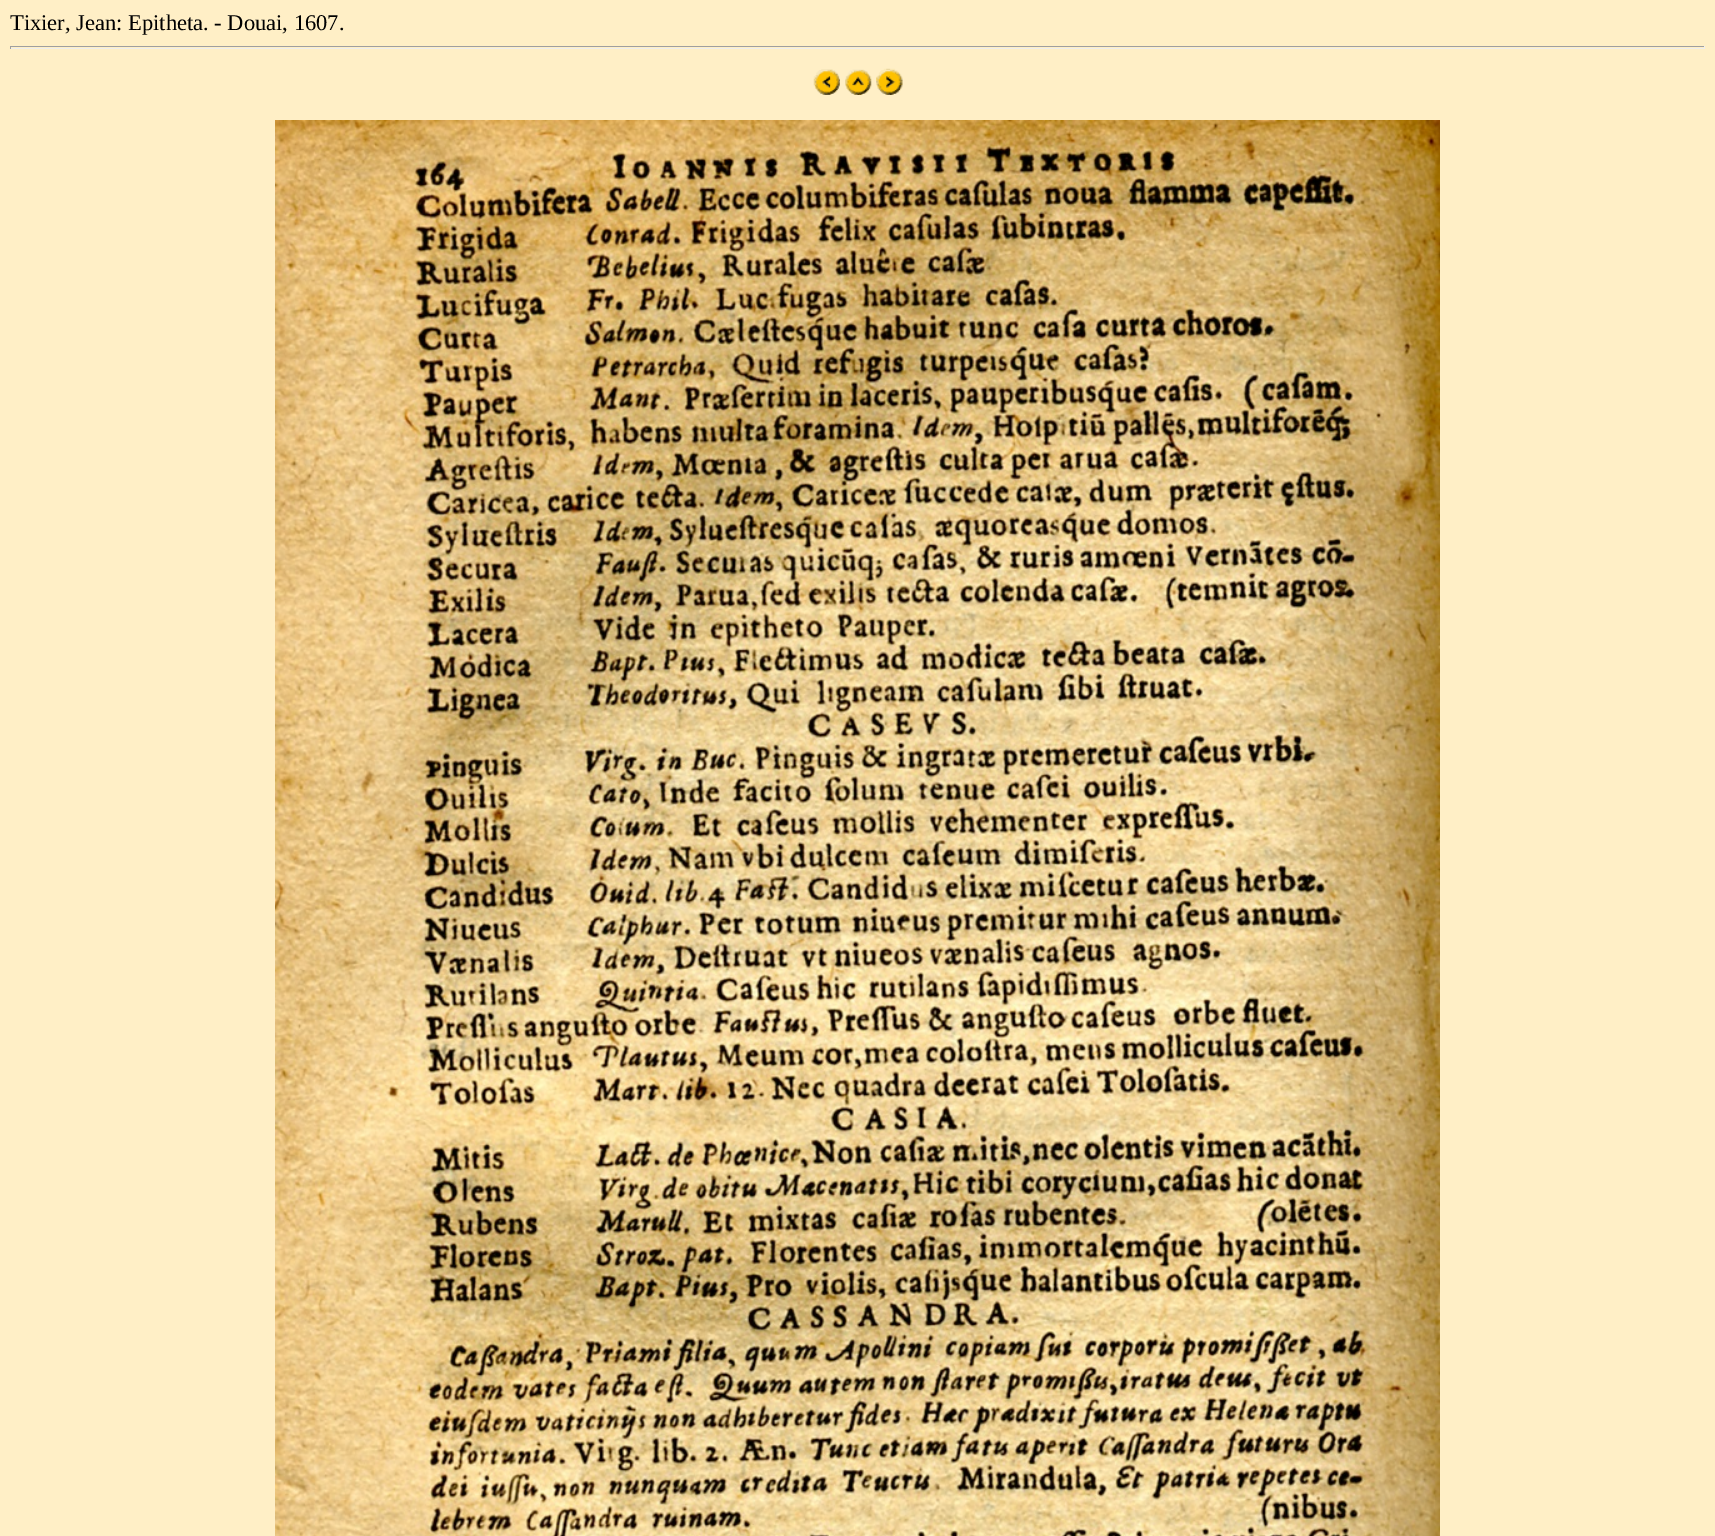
%!PS-Adobe-3.0
%%BoundingBox: 0 0 1715 1536
%%LanguageLevel: 3
%%Pages: 1
%%EndComments
%%BeginProlog
/fn { [ exch dup neg 0 0 3 -1 roll 0 0 ] selectfont } def
/tx { moveto show } def
/bx { rectfill } def
/im { 5 dict begin { /h /w /y /x /name } { exch def } forall
  gsave x y translate w h scale
  w h 8 [w 0 0 h 0 0] name (r) file false 3 colorimage grestore end } def
%%EndProlog
%%BeginSetup
<< /PageSize [1715 1536] >> setpagedevice
%%EndSetup
%%Page: 1 1
0 1536 translate 1 -1 scale
4 setmiterlimit
1 0.937 0.776 setrgbcolor
0 0 1715 1536 bx
/LiberationSerif-Regular 22.5 fn
0 setgray
(Tixier, Jean: Epitheta. - Douai, 1607.) 10 30 tx
0.624 setgray
10 46 1695 1 bx
0.933 setgray
1704 46 1 3 bx
10 48 1695 1 bx
0.624 setgray
10 46 1 3 bx
(image0.raw) 813 69 27 26 im
(image1.raw) 845 69 27 26 im
(image2.raw) 876 68 27 27 im
(image3.raw) 275 120 1165 1416 im
showpage
%%EOF
